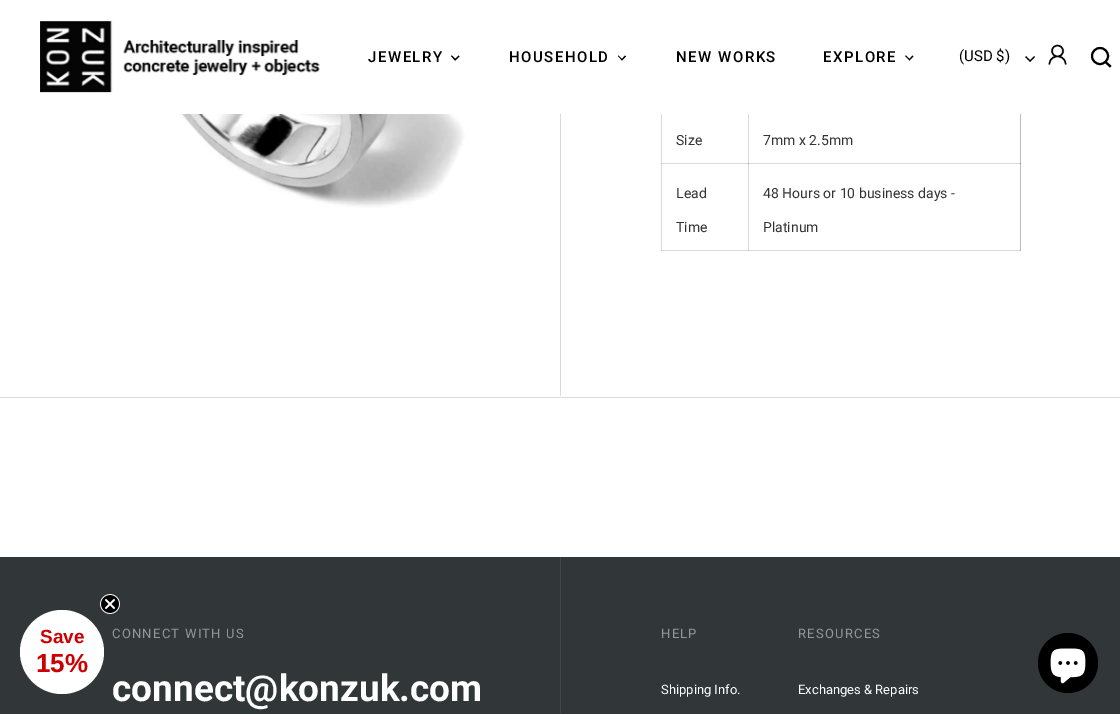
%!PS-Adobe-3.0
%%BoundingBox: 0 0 1120 714
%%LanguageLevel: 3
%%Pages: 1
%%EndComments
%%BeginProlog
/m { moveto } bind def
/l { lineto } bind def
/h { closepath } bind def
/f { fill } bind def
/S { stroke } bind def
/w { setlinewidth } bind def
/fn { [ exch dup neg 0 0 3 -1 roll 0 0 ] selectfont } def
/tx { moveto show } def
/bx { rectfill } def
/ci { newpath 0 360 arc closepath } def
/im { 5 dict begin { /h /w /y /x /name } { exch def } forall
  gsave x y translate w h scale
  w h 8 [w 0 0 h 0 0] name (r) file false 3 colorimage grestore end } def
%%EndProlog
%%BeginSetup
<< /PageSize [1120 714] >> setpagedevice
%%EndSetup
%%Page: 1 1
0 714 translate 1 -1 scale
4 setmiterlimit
1 setgray
0 0 1120 714 bx
0.855 setgray
748 110 1 141 bx
661 163 360 1 bx
661 114 1 137 bx
661 250 360 1 bx
0.737 setgray
1020 110 1 141 bx
1 setgray
748 110 273 4 bx
(image0.raw) 40 21 280 72 im
/Roboto-Medium 15 fn
0 setgray
368 62 m 1.5 0 (JEWELRY) ashow
458.5 55.5 m 459.5 56.5 l 455.5 60.5 l 454.5 59.5 l h f
452 55.5 m 456 59.5 l 455 60.5 l 451 56 l h f
509 62 m 1.5 0 (HOUSEHOLD) ashow
625 55.5 m 626 56.5 l 622 60.5 l 621.5 59.5 l h f
618.5 55.5 m 622.5 59.5 l 622 60.5 l 618 56 l h f
676 62 m 1.5 0 (NEW WORKS) ashow
823 62 m 1.5 0 (EXPLORE) ashow
912.5 55.5 m 913.5 56.5 l 909.5 60.5 l 909 59.5 l h f
906 55.5 m 910 59.5 l 909.5 60.5 l 905 56 l h f
/Roboto-Regular 15 fn
(\(USD $\)) 959 61 tx
(image1.raw) 1025 56 10 6 im
(image2.raw) 1048 44 19 21 im
2 w
1100 56 8 ci S
1105 63 m 1106.5 61.5 l 1111.5 66 l 1110 67.5 l h f
0.192 0.216 0.224 setrgbcolor
0 557 1120 157 bx
1 setgray
62 652 42 ci f
(image3.raw) 100 594 20 20 im
/LiberationSans-Bold 19 fn
0.8 0 0 setrgbcolor
(Save) 40 643 tx
/LiberationSans-Bold 26 fn
(15%) 36 672 tx
0.639 setgray
748 163 1 1 bx
0.737 setgray
661 163 1 1 bx
748 250 1 1 bx
661 250 1 1 bx
0.561 setgray
1020 163 1 1 bx
0.639 setgray
1020 250 1 1 bx
(image4.raw) 153 114 312 94 im
0.855 setgray
560 114 1 282 bx
/Roboto-Regular 14 fn
0.2 setgray
(Size) 676 145 tx
(7mm x 2.5mm) 763 145 tx
(Lead) 676 198 tx
(Time) 676 232 tx
(48 Hours or 10 business days -) 763 198 tx
(Platinum) 763 232 tx
0.855 setgray
0 397 1120 1 bx
0.255 0.278 0.286 setrgbcolor
560 557 1 157 bx
/Roboto-Regular 13 fn
0.58 0.592 0.596 setrgbcolor
112 638 m 1.25 0 (CONNECT WITH US) ashow
/Roboto-Bold 37 fn
1 setgray
(connect@konzuk.com) 112 701 tx
/Roboto-Regular 13 fn
0.58 0.592 0.596 setrgbcolor
661 638 m 1.25 0 (HELP) ashow
1 setgray
(Shipping Info.) 661 694 tx
0.58 0.592 0.596 setrgbcolor
798 638 m 1.25 0 (RESOURCES) ashow
1 setgray
(Exchanges & Repairs) 798 694 tx
0 setgray
1068 663 30 ci f
(image5.raw) 1050 648 36 36 im
showpage
%%EOF
